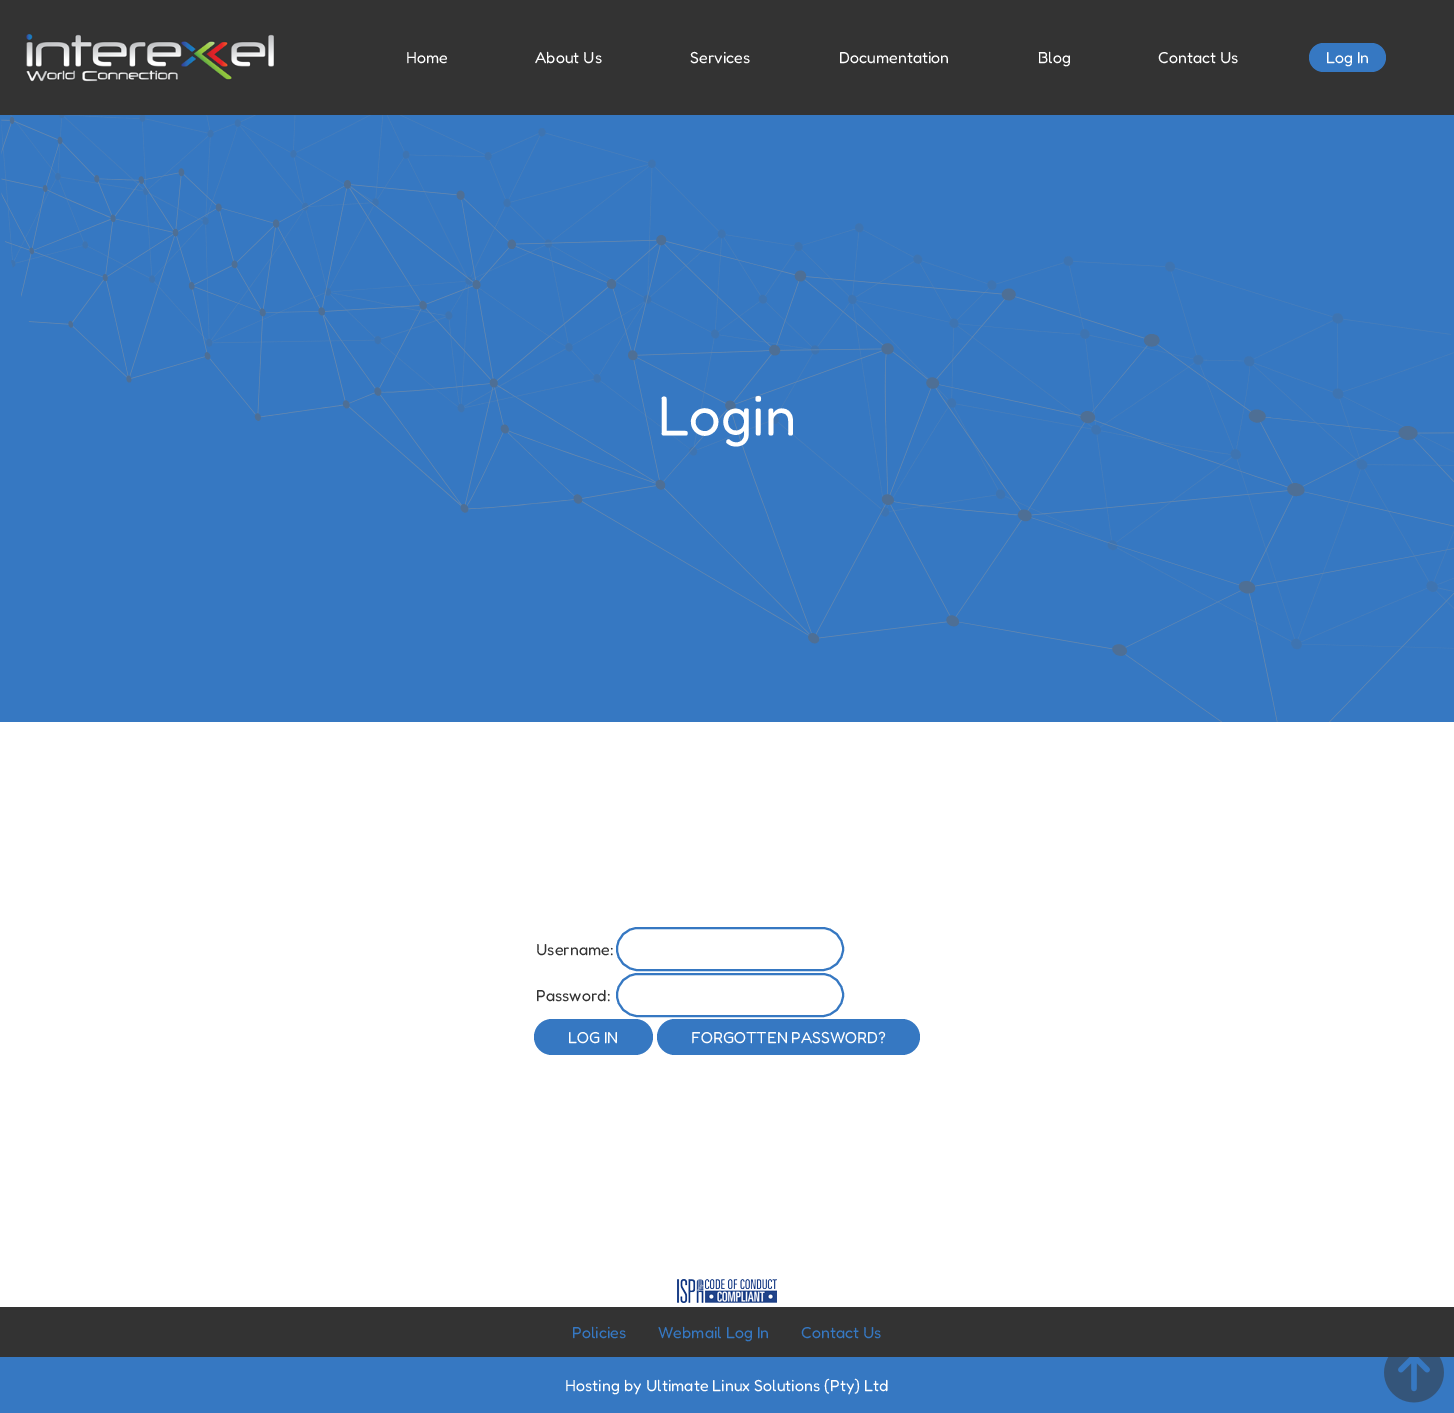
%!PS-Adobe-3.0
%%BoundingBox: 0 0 1454 1413
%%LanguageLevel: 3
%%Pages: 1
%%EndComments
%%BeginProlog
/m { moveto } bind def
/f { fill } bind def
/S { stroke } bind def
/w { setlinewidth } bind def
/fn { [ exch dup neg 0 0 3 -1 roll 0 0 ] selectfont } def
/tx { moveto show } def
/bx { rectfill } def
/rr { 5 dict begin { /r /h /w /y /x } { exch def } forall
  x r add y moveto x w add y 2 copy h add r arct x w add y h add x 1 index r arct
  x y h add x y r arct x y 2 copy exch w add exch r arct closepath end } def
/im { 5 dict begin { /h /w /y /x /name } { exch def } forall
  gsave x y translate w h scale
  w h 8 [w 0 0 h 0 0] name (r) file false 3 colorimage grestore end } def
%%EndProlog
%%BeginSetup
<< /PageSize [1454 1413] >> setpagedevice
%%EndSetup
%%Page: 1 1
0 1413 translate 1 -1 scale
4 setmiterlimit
1 setgray
0 0 1454 1413 bx
0.2 setgray
0 0 1454 115 bx
(image0.raw) 26 34 248 48 im
/Fredoka-Regular 16 fn
1 setgray
(Home) 406 63 tx
(About Us) 535 63 tx
(Services) 690 63 tx
(Documentation) 839 63 tx
(Blog) 1038 63 tx
(Contact Us) 1158 63 tx
0.212 0.471 0.761 setrgbcolor
1309 43 77 29 14.5 rr f
1 setgray
(Log In) 1326 63 tx
0.212 0.471 0.761 setrgbcolor
0 115 1454 607 bx
(image1.raw) 1 115 1453 607 im
/Fredoka-Regular 56 fn
1 setgray
(Login) 658 435 tx
/Fredoka-Regular 16 fn
0.2 setgray
(Username:) 536 955 tx
0.212 0.471 0.761 setrgbcolor
2 w
617 928 226 42 21 rr S
0.2 setgray
(Password:) 536 1001 tx
0.212 0.471 0.761 setrgbcolor
617 974 226 42 21 rr S
534 1019 119 36 18 rr f
1 setgray
(LOG IN) 568 1043 tx
0.212 0.471 0.761 setrgbcolor
657 1019 263 36 18 rr f
1 setgray
691 1043 m -1 0 32 (FORGOTTEN PASSWORD?) widthshow
(image2.raw) 677 1279 100 24 im
0.2 setgray
0 1307 1454 50 bx
0.212 0.471 0.761 setrgbcolor
(Policies) 572 1338 tx
(Webmail Log In) 658 1338 tx
(Contact Us) 801 1338 tx
0 1357 1454 56 bx
1 setgray
(Hosting by Ultimate Linux Solutions \(Pty\) Ltd) 565 1391 tx
(image3.raw) 1384 1357 60 46 im
showpage
%%EOF
